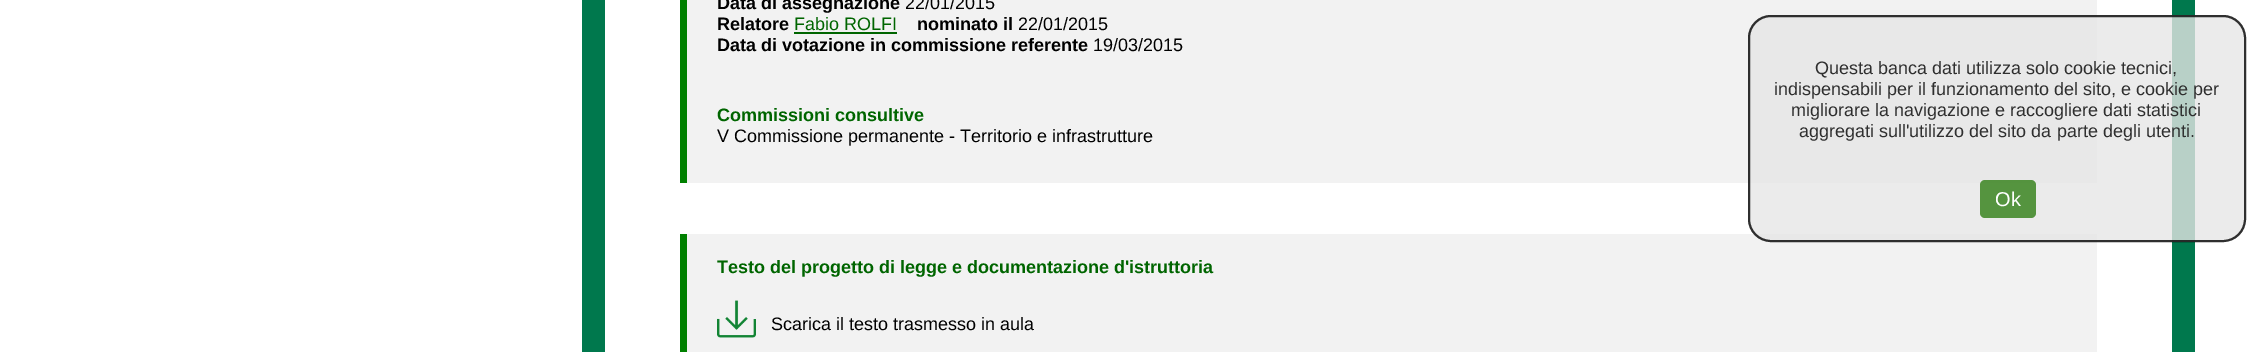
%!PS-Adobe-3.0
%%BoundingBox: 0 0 2260 352
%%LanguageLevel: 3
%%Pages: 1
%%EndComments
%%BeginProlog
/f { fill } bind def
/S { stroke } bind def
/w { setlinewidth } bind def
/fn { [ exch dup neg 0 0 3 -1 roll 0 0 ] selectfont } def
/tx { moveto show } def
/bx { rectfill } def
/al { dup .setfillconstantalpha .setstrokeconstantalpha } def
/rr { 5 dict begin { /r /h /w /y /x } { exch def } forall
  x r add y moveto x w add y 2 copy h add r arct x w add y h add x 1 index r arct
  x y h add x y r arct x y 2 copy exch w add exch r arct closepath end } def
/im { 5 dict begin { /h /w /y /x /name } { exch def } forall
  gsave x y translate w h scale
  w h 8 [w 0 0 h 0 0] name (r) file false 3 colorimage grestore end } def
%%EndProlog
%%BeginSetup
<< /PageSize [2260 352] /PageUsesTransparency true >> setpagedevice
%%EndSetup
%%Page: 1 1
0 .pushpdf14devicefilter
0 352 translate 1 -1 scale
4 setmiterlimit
1 setgray
0 0 2260 352 bx
0 0.471 0.302 setrgbcolor
582 0 1613 352 bx
1 setgray
605 0 1567 352 bx
0.949 setgray
687 0 1410 183 bx
0 0.502 0 setrgbcolor
680 0 7 183 bx
/LiberationSans-Bold 18 fn
0 setgray
(Data di assegnazione) 717 9 tx
/LiberationSans-Regular 18 fn
(22/01/2015) 905 9 tx
/LiberationSans-Bold 18 fn
(Relatore) 717 30 tx
/LiberationSans-Regular 18 fn
0 0.396 0 setrgbcolor
(Fabio ROLFI) 794 30 tx
794 32 103 2 bx
/LiberationSans-Bold 18 fn
0 setgray
(nominato il) 917 30 tx
/LiberationSans-Regular 18 fn
(22/01/2015) 1018 30 tx
/LiberationSans-Bold 18 fn
(Data di votazione in commissione referente) 717 51 tx
/LiberationSans-Regular 18 fn
(19/03/2015) 1093 51 tx
/LiberationSans-Bold 18 fn
0 0.396 0 setrgbcolor
(Commissioni consultive) 717 121 tx
/LiberationSans-Regular 18 fn
0 setgray
(V Commissione permanente - Territorio e infrastrutture) 717 142 tx
0.949 setgray
687 234 1410 118 bx
0 0.502 0 setrgbcolor
680 234 7 118 bx
/LiberationSans-Bold 18 fn
0 0.396 0 setrgbcolor
(Testo del progetto di legge e documentazione d'istruttoria) 717 273 tx
(image0.raw) 717 300 39 38 im
/LiberationSans-Regular 18 fn
0 setgray
(Scarica il testo trasmesso in aula) 771 330 tx
0.8 al
0.902 setgray
1748 15 498 227 23 rr f
0 setgray
2 w
1749 16 496 225 22 rr S
1 al
0.184 setgray
(Questa banca dati utilizza solo cookie tecnici,) 1815 74 tx
(indispensabili per il funzionamento del sito, e cookie per) 1774 95 tx
(migliorare la navigazione e raccogliere dati statistici) 1791 116 tx
(aggregati sull'utilizzo del sito da parte degli utenti.) 1799 137 tx
0.8 al
0.184 0.494 0.078 setrgbcolor
1980 180 56 38 5 rr f
/LiberationSans-Regular 20 fn
1 al
1 setgray
(Ok) 1995 206 tx
.poppdf14devicefilter showpage
%%EOF
